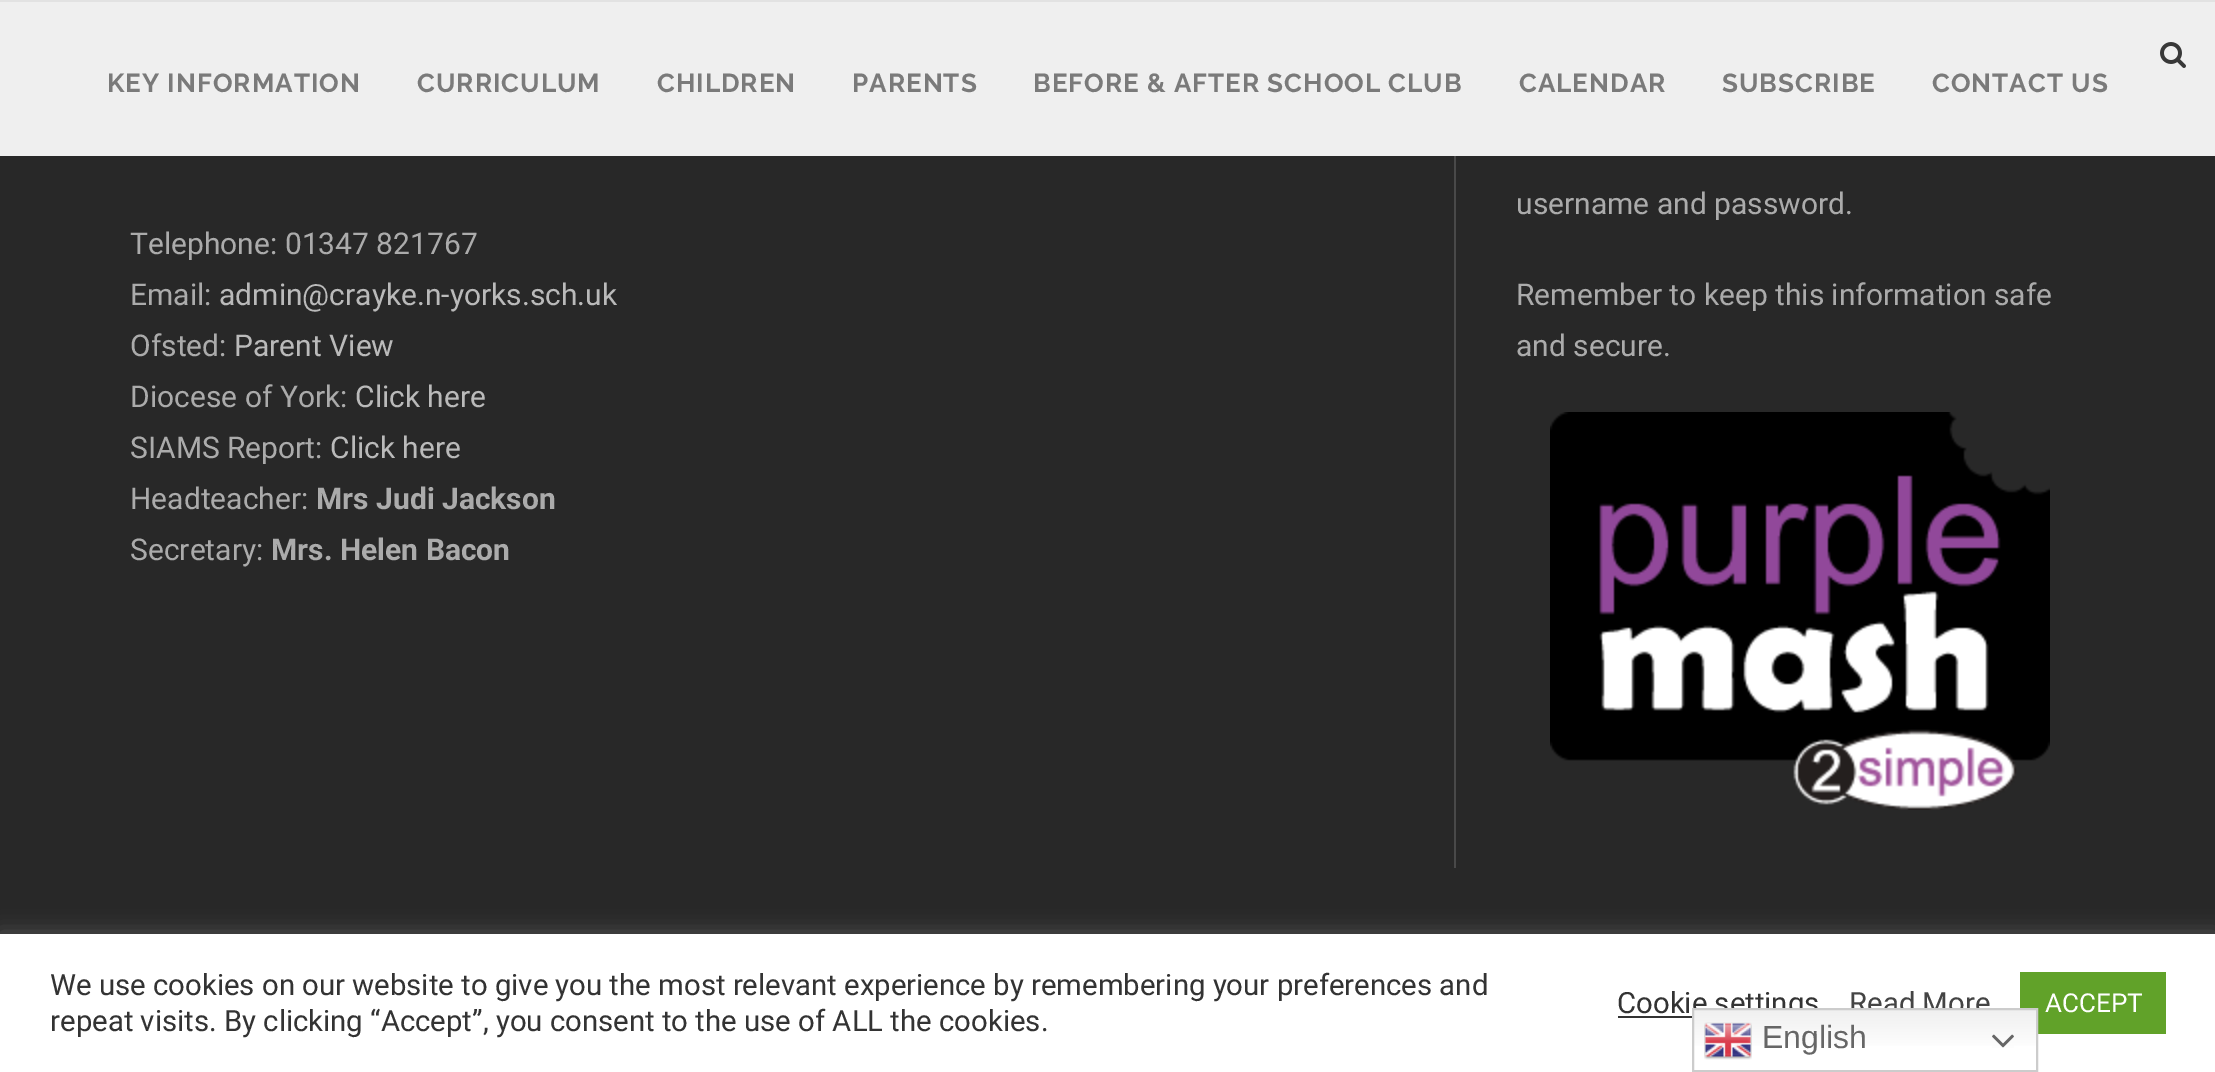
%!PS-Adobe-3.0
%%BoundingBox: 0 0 2215 1072
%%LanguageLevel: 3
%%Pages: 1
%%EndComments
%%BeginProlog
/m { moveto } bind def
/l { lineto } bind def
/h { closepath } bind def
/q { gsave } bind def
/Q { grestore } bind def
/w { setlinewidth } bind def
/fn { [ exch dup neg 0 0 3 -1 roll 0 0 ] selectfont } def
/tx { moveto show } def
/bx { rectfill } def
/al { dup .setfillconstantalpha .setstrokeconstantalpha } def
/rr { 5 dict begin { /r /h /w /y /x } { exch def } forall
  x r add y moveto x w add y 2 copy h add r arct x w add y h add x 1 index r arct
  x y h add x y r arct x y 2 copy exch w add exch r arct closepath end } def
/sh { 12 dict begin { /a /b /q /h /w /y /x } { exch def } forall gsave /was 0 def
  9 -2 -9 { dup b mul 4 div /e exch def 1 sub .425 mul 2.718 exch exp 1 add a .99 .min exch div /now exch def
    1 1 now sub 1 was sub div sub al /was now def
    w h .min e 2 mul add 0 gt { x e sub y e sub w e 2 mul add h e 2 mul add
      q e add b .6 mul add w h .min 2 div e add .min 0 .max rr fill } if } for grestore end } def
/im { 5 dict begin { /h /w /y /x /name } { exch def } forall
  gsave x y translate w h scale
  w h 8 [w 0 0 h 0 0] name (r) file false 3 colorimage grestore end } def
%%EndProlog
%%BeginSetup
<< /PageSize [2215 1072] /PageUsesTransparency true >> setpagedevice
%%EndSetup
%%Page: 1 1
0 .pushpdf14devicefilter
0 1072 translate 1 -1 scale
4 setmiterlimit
0.157 setgray
0 0 2215 1072 bx
0.886 setgray
0 0 2215 2 bx
0.937 setgray
0 2 2215 154 bx
(image0.raw) 2160 42 26 26 im
/Raleway-Bold 26 fn
0.478 setgray
107 92 m 1 0 (KEY INFORMATION) ashow
417 92 m 1 0 (CURRICULUM) ashow
657 92 m 1 0 (CHILDREN) ashow
852 92 m 1 0 (PARENTS) ashow
1033 92 m 1 0 (BEFORE & AFTER SCHOOL CLUB) ashow
1519 92 m 1 0 (CALENDAR) ashow
1722 92 m 1 0 (SUBSCRIBE) ashow
1932 92 m 1 0 (CONTACT US) ashow
/Roboto-Regular 30 fn
0.671 setgray
(Telephone: 01347 821767) 130 254 tx
(Email:) 130 305 tx
0.729 setgray
(admin@crayke.n-yorks.sch.uk) 219 305 tx
0.671 setgray
(Ofsted:) 130 356 tx
0.729 setgray
(Parent View) 234 356 tx
0.671 setgray
(Diocese of York:) 130 407 tx
0.729 setgray
(Click here) 355 407 tx
0.671 setgray
(SIAMS Report:) 130 458 tx
0.729 setgray
(Click here) 330 458 tx
0.671 setgray
(Headteacher:) 130 509 tx
/Roboto-Bold 30 fn
(Mrs Judi Jackson) 316 509 tx
/Roboto-Regular 30 fn
(Secretary:) 130 560 tx
/Roboto-Bold 30 fn
(Mrs. Helen Bacon) 271 560 tx
0.286 setgray
1454 156 2 712 bx
/Roboto-Regular 30 fn
0.671 setgray
(username and password.) 1516 214 tx
(Remember to keep this information safe) 1516 305 tx
(and secure.) 1516 356 tx
(image1.raw) 1550 412 500 398 im
0.675 0.671 0.671 setrgbcolor
0 932 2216 138 0 10 0.3 sh
1 setgray
0 934 2215 138 bx
/Roboto-Regular 29.35 fn
0.2 setgray
(We use cookies on our website to give you the most relevant experience by remembering your preferences and) 50 995 tx
(repeat visits. By clicking “Accept”, you consent to the use of ALL the cookies.) 50 1031 tx
1618 1016 74 2 bx
(Cookie settings) 1617 1013 tx
0.267 setgray
(Read More) 1849 1013 tx
0.38 0.635 0.161 setrgbcolor
2020 972 146 62 bx
/Roboto-Regular 26 fn
1 setgray
(ACCEPT) 2045 1012 tx
q 1694 1010 m 2036 1010 l 2036 1046 l 1694 1046 l h clip newpath
<< /ShadingType 2 /ColorSpace /DeviceRGB /Coords [1865 1008 1865 1072] /Extend [true true] /Function << /FunctionType 3 /Domain [0 1] /Functions [<< /FunctionType 2 /Domain [0 1] /C0 [0.937 0.937 0.937] /C1 [1 1 1] /N 1 >> << /FunctionType 2 /Domain [0 1] /C0 [1 1 1] /C1 [1 1 1] /N 1 >>] /Bounds [0.7] /Encode [0 1 0 1] >> >> shfill Q
0.8 setgray
2 w
1693 1009 344 62 rectstroke
(image2.raw) 1704 1022 48 38 im
/LiberationSans-Regular 32 fn
0.4 setgray
(English) 1762 1048 tx
(image3.raw) 1992 1034 22 14 im
.poppdf14devicefilter showpage
%%EOF
